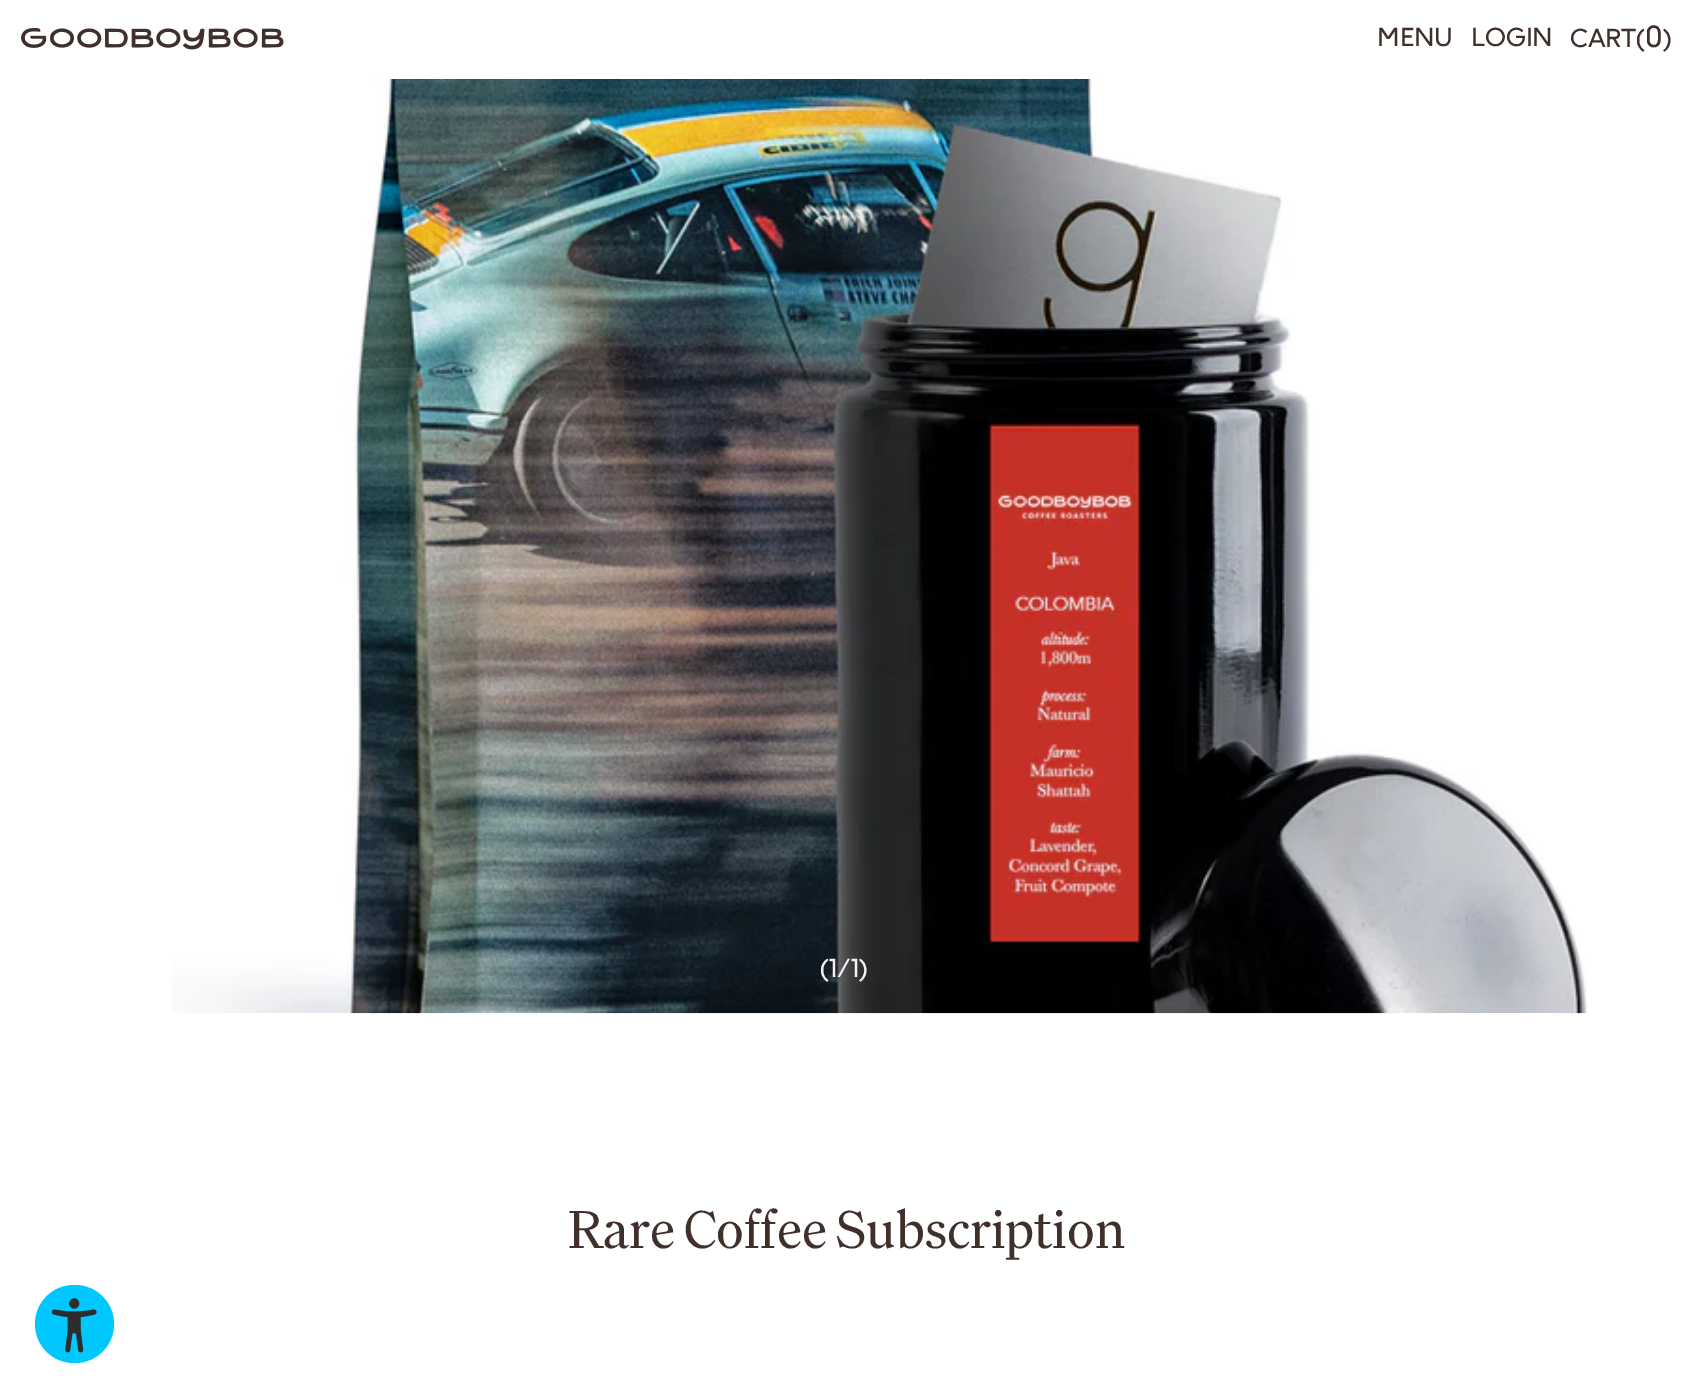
%!PS-Adobe-3.0
%%BoundingBox: 0 0 1691 1398
%%LanguageLevel: 3
%%Pages: 1
%%EndComments
%%BeginProlog
/f { fill } bind def
/fn { [ exch dup neg 0 0 3 -1 roll 0 0 ] selectfont } def
/tx { moveto show } def
/bx { rectfill } def
/rr { 5 dict begin { /r /h /w /y /x } { exch def } forall
  x r add y moveto x w add y 2 copy h add r arct x w add y h add x 1 index r arct
  x y h add x y r arct x y 2 copy exch w add exch r arct closepath end } def
/im { 5 dict begin { /h /w /y /x /name } { exch def } forall
  gsave x y translate w h scale
  w h 8 [w 0 0 h 0 0] name (r) file false 3 colorimage grestore end } def
%%EndProlog
%%BeginSetup
<< /PageSize [1691 1398] >> setpagedevice
%%EndSetup
%%Page: 1 1
0 1398 translate 1 -1 scale
4 setmiterlimit
1 setgray
0 0 1691 1398 bx
(image0.raw) 21 28 263 22 im
/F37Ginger-Regular 24.5 fn
0.251 0.188 0.173 setrgbcolor
(MENU) 1377 46 tx
(LOGIN) 1471 46 tx
(CART\() 1570 47 tx
/F37Ginger-Regular 29 fn
(0) 1645 47 tx
/F37Ginger-Regular 24.5 fn
(\)) 1663 47 tx
(image1.raw) 172 79 1416 935 im
0.957 0.953 0.941 setrgbcolor
(\(1/1\)) 820 977 tx
/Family-Regular 56 fn
0.251 0.188 0.173 setrgbcolor
(Rare Coffee Subscription) 568 1248 tx
0 0.784 1 setrgbcolor
35 1285 79 78 39 rr f
(image2.raw) 51 1298 46 55 im
showpage
%%EOF
